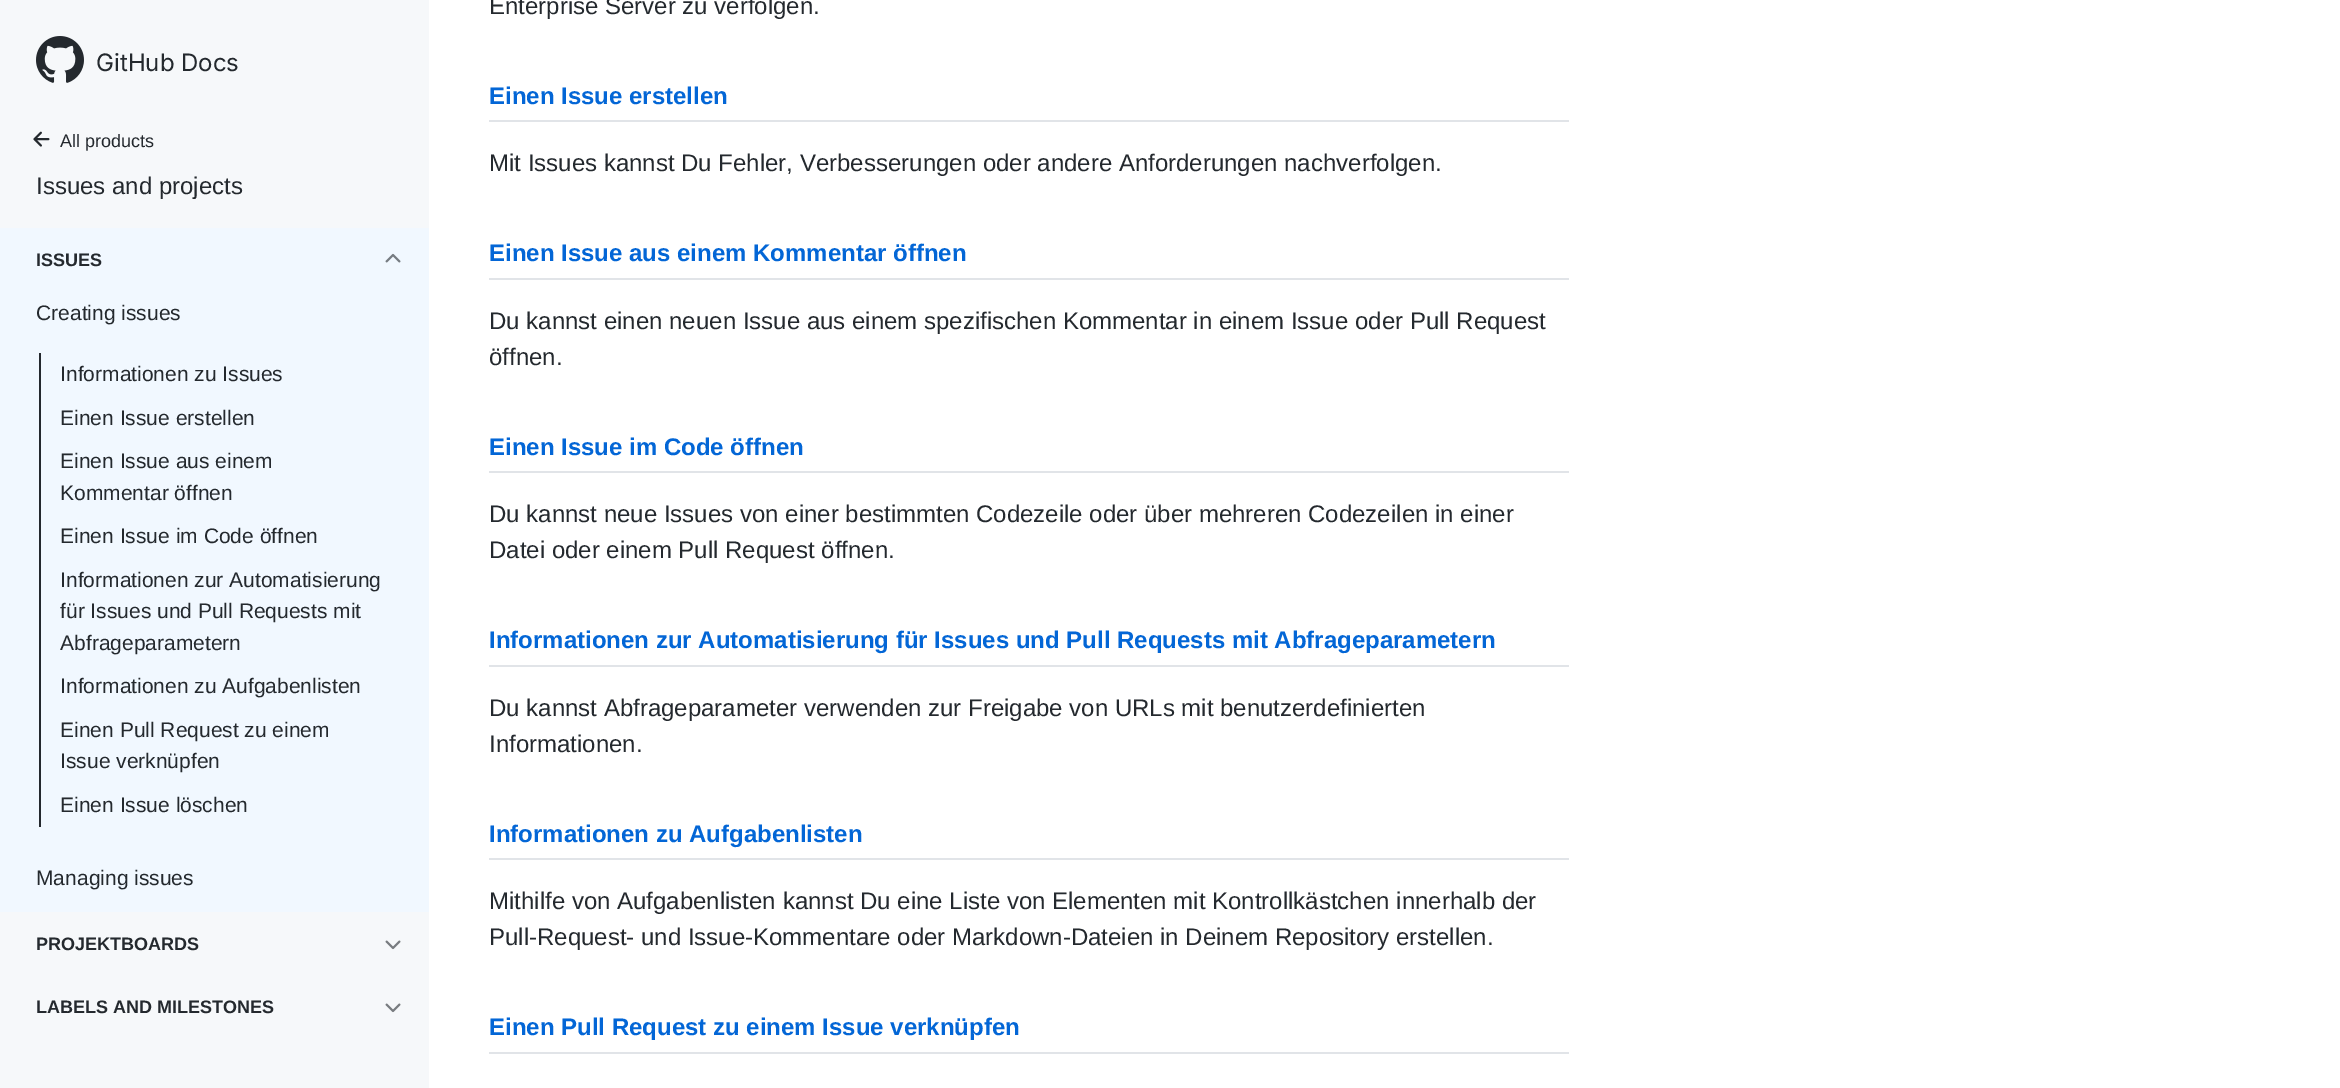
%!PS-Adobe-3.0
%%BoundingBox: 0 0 2340 1088
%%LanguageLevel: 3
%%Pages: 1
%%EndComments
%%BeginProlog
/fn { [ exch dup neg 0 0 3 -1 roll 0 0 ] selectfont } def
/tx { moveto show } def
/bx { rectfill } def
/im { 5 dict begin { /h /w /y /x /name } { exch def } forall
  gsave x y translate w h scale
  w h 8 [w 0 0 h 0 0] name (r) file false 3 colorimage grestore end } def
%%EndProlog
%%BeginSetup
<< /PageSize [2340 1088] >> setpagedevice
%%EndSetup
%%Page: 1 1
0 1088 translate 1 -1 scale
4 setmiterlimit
1 setgray
0 0 2340 1088 bx
0.965 0.973 0.98 setrgbcolor
0 0 429 1088 bx
(image0.raw) 36 36 48 47 im
/Inter-Regular 24 fn
0.141 0.161 0.18 setrgbcolor
(GitHub Docs) 96 71 tx
(image1.raw) 33 131 17 16 im
/LiberationSans-Regular 18 fn
(All products) 60 147 tx
/LiberationSans-Regular 24 fn
(Issues and projects) 36 194 tx
0.945 0.973 1 setrgbcolor
0 228 429 684 bx
/LiberationSans-Bold 18 fn
0.141 0.161 0.18 setrgbcolor
(ISSUES) 36 266 tx
(image2.raw) 385 253 16 10 im
/LiberationSans-Regular 21 fn
(Creating issues) 36 320 tx
39 353 2 474 bx
(Informationen zu Issues) 60 381 tx
(Einen Issue erstellen) 60 425 tx
(Einen Issue aus einem) 60 468 tx
(Kommentar öffnen) 60 500 tx
(Einen Issue im Code öffnen) 60 543 tx
(Informationen zur Automatisierung) 60 587 tx
(für Issues und Pull Requests mit) 60 618 tx
(Abfrageparametern) 60 650 tx
(Informationen zu Aufgabenlisten) 60 693 tx
(Einen Pull Request zu einem) 60 737 tx
(Issue verknüpfen) 60 768 tx
(Einen Issue löschen) 60 812 tx
(Managing issues) 36 885 tx
/LiberationSans-Bold 18 fn
(PROJEKTBOARDS) 36 950 tx
(image3.raw) 385 940 16 10 im
(LABELS AND MILESTONES) 36 1013 tx
(image3.raw) 385 1003 16 10 im
/LiberationSans-Regular 24 fn
(Enterprise Server zu verfolgen.) 489 14 tx
0.882 0.894 0.91 setrgbcolor
489 120 1080 2 bx
/LiberationSans-Bold 24 fn
0.012 0.4 0.839 setrgbcolor
(Einen Issue erstellen) 489 104 tx
/LiberationSans-Regular 24 fn
0.141 0.161 0.18 setrgbcolor
(Mit Issues kannst Du Fehler, Verbesserungen oder andere Anforderungen nachverfolgen.) 489 171 tx
0.882 0.894 0.91 setrgbcolor
489 278 1080 2 bx
/LiberationSans-Bold 24 fn
0.012 0.4 0.839 setrgbcolor
(Einen Issue aus einem Kommentar öffnen) 489 261 tx
/LiberationSans-Regular 24 fn
0.141 0.161 0.18 setrgbcolor
(Du kannst einen neuen Issue aus einem spezifischen Kommentar in einem Issue oder Pull Request) 489 329 tx
(öffnen.) 489 365 tx
0.882 0.894 0.91 setrgbcolor
489 471 1080 2 bx
/LiberationSans-Bold 24 fn
0.012 0.4 0.839 setrgbcolor
(Einen Issue im Code öffnen) 489 455 tx
/LiberationSans-Regular 24 fn
0.141 0.161 0.18 setrgbcolor
(Du kannst neue Issues von einer bestimmten Codezeile oder über mehreren Codezeilen in einer) 489 522 tx
(Datei oder einem Pull Request öffnen.) 489 558 tx
0.882 0.894 0.91 setrgbcolor
489 665 1080 2 bx
/LiberationSans-Bold 24 fn
0.012 0.4 0.839 setrgbcolor
(Informationen zur Automatisierung für Issues und Pull Requests mit Abfrageparametern) 489 648 tx
/LiberationSans-Regular 24 fn
0.141 0.161 0.18 setrgbcolor
(Du kannst Abfrageparameter verwenden zur Freigabe von URLs mit benutzerdefinierten) 489 716 tx
(Informationen.) 489 752 tx
0.882 0.894 0.91 setrgbcolor
489 858 1080 2 bx
/LiberationSans-Bold 24 fn
0.012 0.4 0.839 setrgbcolor
(Informationen zu Aufgabenlisten) 489 842 tx
/LiberationSans-Regular 24 fn
0.141 0.161 0.18 setrgbcolor
(Mithilfe von Aufgabenlisten kannst Du eine Liste von Elementen mit Kontrollkästchen innerhalb der) 489 909 tx
(Pull-Request- und Issue-Kommentare oder Markdown-Dateien in Deinem Repository erstellen.) 489 945 tx
0.882 0.894 0.91 setrgbcolor
489 1052 1080 2 bx
/LiberationSans-Bold 24 fn
0.012 0.4 0.839 setrgbcolor
(Einen Pull Request zu einem Issue verknüpfen) 489 1035 tx
showpage
%%EOF
